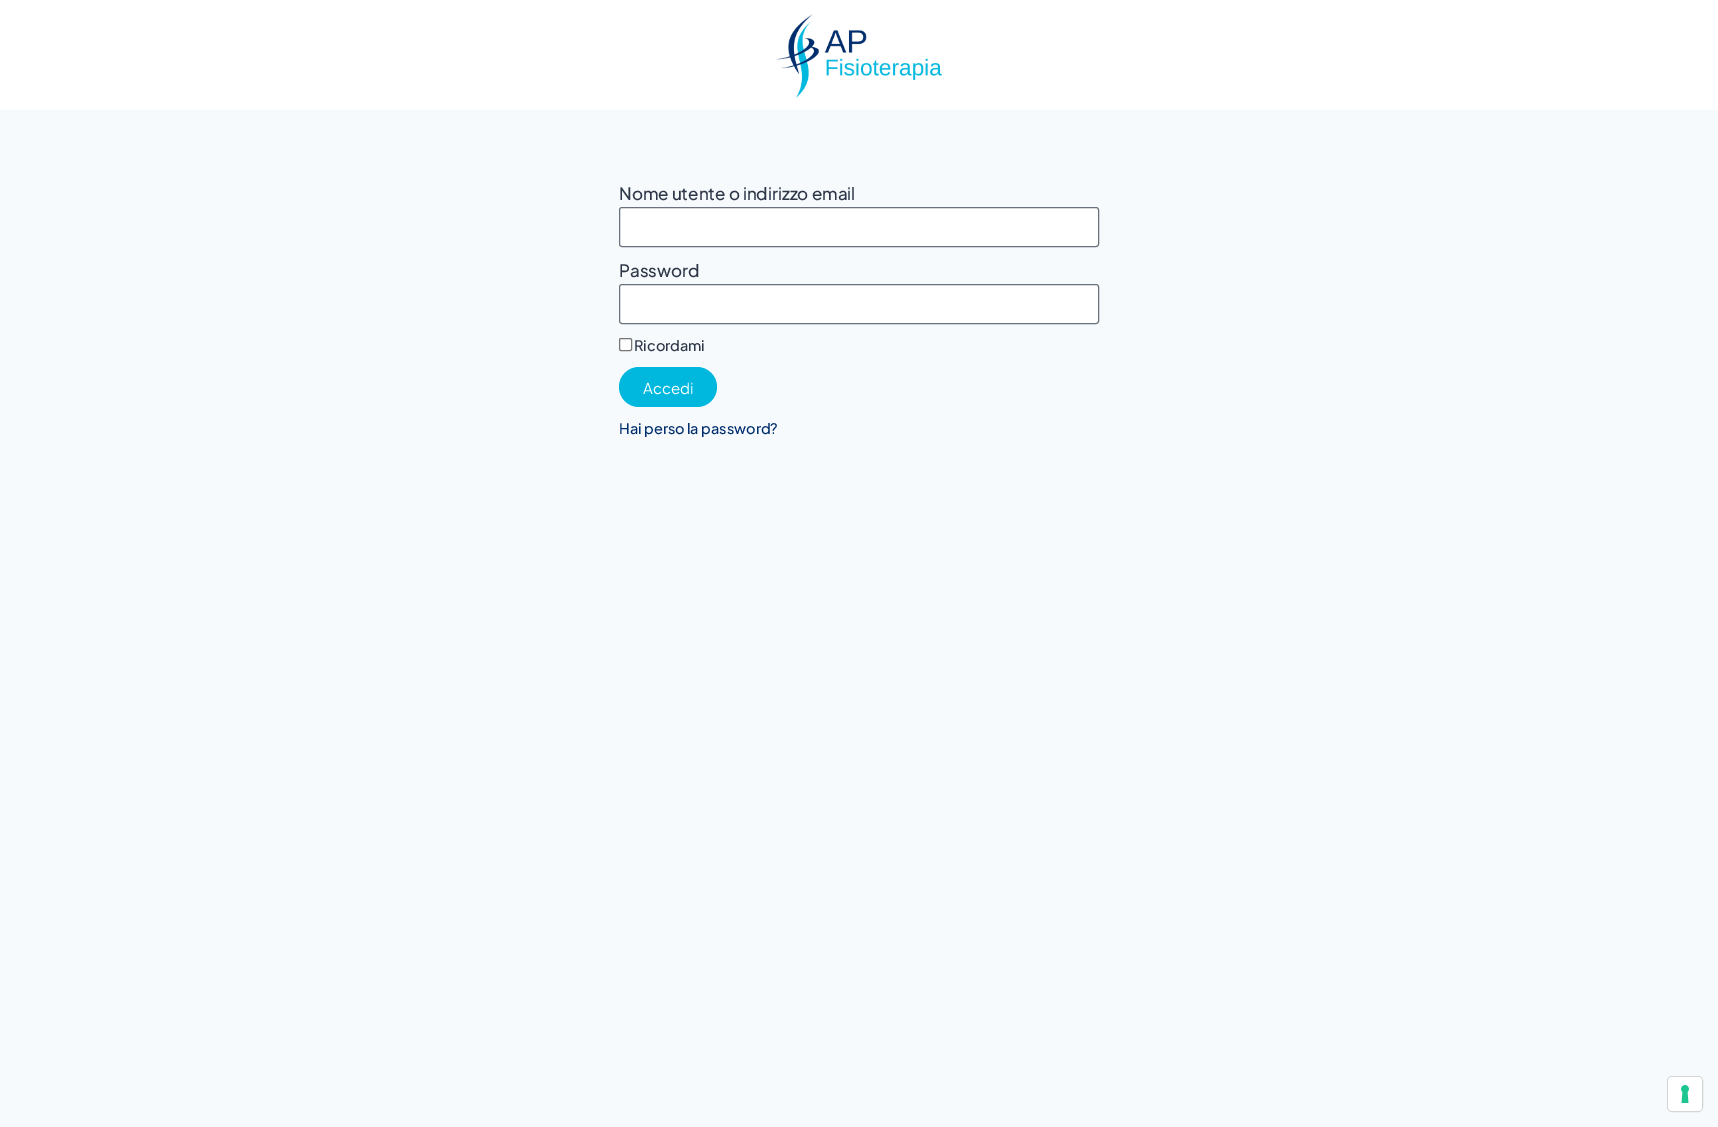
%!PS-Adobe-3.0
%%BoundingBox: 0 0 1718 1127
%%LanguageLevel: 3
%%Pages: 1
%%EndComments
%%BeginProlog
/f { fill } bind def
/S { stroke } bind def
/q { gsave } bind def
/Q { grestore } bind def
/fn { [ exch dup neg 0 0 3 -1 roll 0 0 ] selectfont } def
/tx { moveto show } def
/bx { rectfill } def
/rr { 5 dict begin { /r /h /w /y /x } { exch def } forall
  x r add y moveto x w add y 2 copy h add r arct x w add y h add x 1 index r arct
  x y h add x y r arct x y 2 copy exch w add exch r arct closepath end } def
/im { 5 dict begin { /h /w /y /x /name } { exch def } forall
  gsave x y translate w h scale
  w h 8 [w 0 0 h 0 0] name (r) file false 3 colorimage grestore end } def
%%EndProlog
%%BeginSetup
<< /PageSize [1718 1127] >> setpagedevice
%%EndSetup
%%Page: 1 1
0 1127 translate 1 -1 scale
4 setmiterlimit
0.969 0.98 0.988 setrgbcolor
0 0 1718 1127 bx
1 setgray
0 0 1718 110 bx
(image0.raw) 776 14 166 84 im
/PlusJakartaSans-Medium 17 fn
0.176 0.216 0.282 setrgbcolor
(Nome utente o indirizzo email) 619 200 tx
1 setgray
619.5 207.5 479 39 2.5 rr q f Q
0.412 0.447 0.49 setrgbcolor
S
0.176 0.216 0.282 setrgbcolor
(Password) 619 277 tx
1 setgray
619.5 284.5 479 39 2.5 rr q f Q
0.412 0.447 0.49 setrgbcolor
S
1 setgray
619.5 338.5 12 12 1.5 rr q f Q
0.463 setgray
S
/PlusJakartaSans-Medium 14.5 fn
0.176 0.216 0.282 setrgbcolor
(Ricordami) 634 351 tx
0 0.722 0.871 setrgbcolor
619 367 98 40 20 rr f
/PlusJakartaSans-Regular 15 fn
1 setgray
(Accedi) 643 394 tx
/PlusJakartaSans-Medium 14.5 fn
0 0.18 0.431 setrgbcolor
(Hai perso la password?) 619 434 tx
0.824 0.835 0.839 setrgbcolor
1667.5 1076.5 35 35 4.5 rr S
1 setgray
1668 1077 34 34 4 rr f
(image1.raw) 1681 1085 8 18 im
showpage
%%EOF
